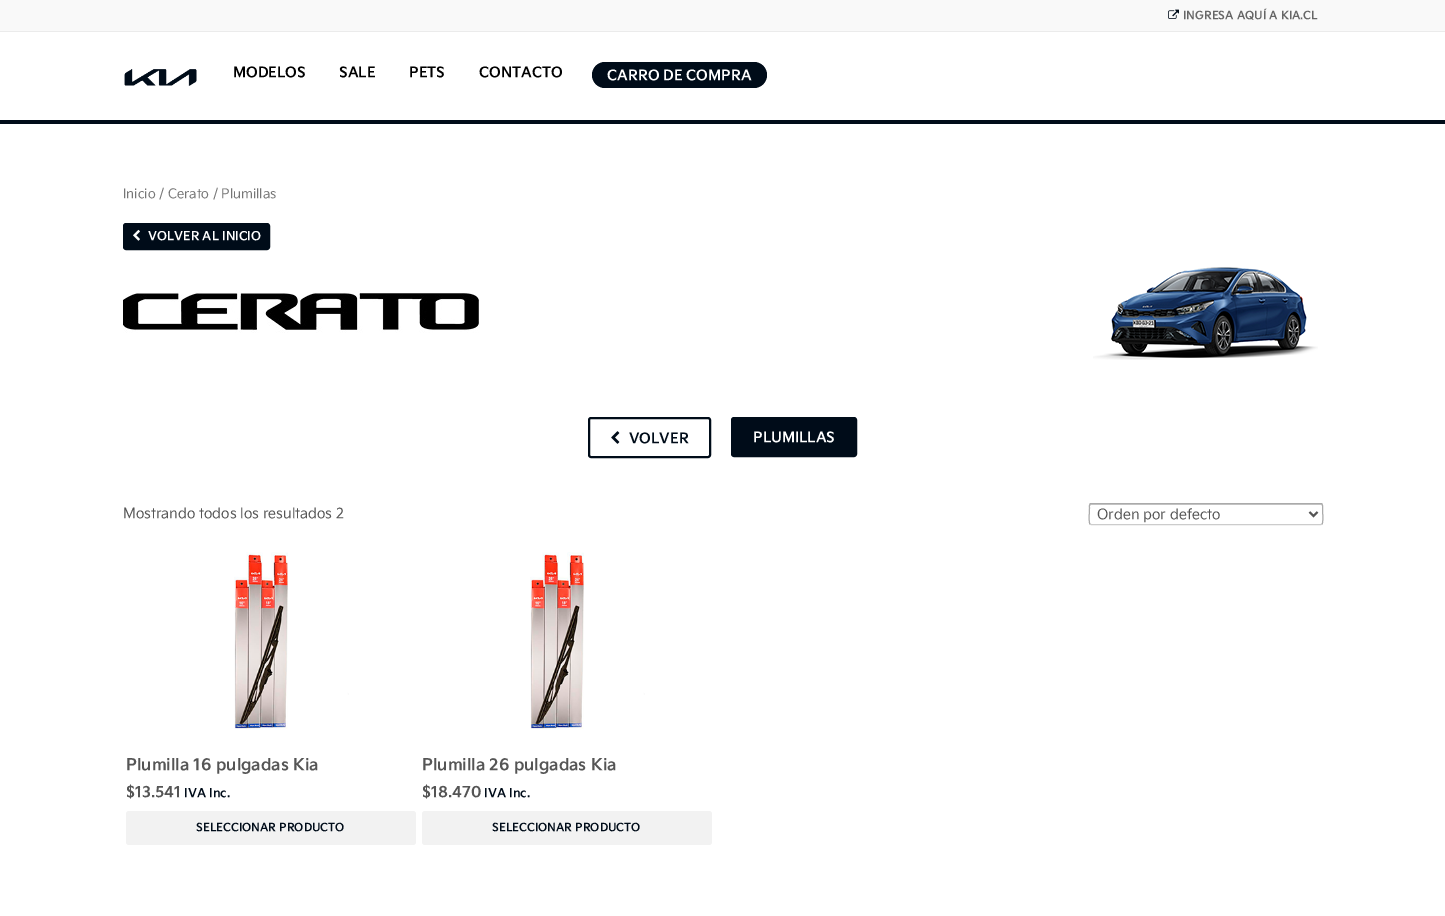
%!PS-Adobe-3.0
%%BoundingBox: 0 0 1445 916
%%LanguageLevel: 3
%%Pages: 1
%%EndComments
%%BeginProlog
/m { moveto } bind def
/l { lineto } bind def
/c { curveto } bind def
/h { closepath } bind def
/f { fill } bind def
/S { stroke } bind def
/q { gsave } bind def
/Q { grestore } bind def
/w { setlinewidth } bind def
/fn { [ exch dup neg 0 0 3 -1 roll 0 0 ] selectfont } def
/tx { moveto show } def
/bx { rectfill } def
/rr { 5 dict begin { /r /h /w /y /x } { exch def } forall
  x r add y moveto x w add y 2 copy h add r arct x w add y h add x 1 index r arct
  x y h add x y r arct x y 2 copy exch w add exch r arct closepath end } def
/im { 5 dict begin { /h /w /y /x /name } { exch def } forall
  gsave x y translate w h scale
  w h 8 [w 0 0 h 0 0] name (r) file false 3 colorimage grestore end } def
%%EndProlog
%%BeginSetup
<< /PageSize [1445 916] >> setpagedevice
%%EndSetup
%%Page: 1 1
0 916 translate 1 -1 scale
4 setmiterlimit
1 setgray
0 0 1445 916 bx
0 0.047 0.098 setrgbcolor
0 120 1445 4 bx
0.976 setgray
0 0 1445 31 bx
0.922 setgray
0 31 1445 1 bx
(image0.raw) 1168 9 11 10 im
/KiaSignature-Bold 11 fn
0.4 setgray
(INGRESA AQUÍ A KIA.CL) 1183 19 tx
(image1.raw) 124 69 73 17 im
/KiaSignature-Bold 14 fn
0 setgray
(MODELOS) 233 77 tx
(SALE) 339 77 tx
(PETS) 409 77 tx
(CONTACTO) 479 77 tx
0 0.047 0.098 setrgbcolor
592 62 175 26 13 rr f
1 setgray
(CARRO DE COMPRA) 607 80 tx
/KiaSignature-Regular 12.9 fn
0.463 setgray
(Inicio / Cerato / Plumillas) 123 198 tx
0 0.047 0.098 setrgbcolor
124 224 145 25 2 rr q f Q
2 w
S
(image2.raw) 133 229 7 12 im
/KiaSignature-Bold 12 fn
1 setgray
(VOLVER AL INICIO) 148 240 tx
(image3.raw) 123 290 356 43 im
(image4.raw) 1093 267 225 93 im
0 0.047 0.098 setrgbcolor
589 418 121 39 2 rr S
(image5.raw) 611 431 9 13 im
/KiaSignature-Bold 14 fn
(VOLVER) 629 443 tx
732 418 124 38 2 rr q f Q
S
1 setgray
(PLUMILLAS) 753 442 tx
/KiaSignature-Regular 14 fn
0.333 setgray
(Mostrando todos los resultados 2) 123 518 tx
0.8 setgray
1091 505 m 1322 505 l 1322 506 l 1322 505 1322 504 1321 504 c 1090 504 l 1090 506 l 1090 505 1090 505 1091 505 c h f
1 w
1322 524 m 1321 524.5 l 1091 524.5 l 1090 524 l S
0.667 setgray
1090 524 m 1088.5 523 1089.5 510.5 1089.5 508 c 1089.5 507 1089 503.5 1091 503.5 c 1321 503.5 l 1323 503.5 1322.5 507 1322.5 508 c 1322.5 510.5 1323.5 523 1322 524 c S
0.333 setgray
2 w
1309.5 512 m 1313.5 516 l 1317.5 512 l S
(Orden por defecto) 1097 519 tx
(image6.raw) 234 552 115 178 im
/KiaSignature-Bold 16 fn
(Plumilla 16 pulgadas Kia) 126 770 tx
/KiaSignature-Bold 15 fn
($13.541) 126 797 tx
/KiaSignature-Bold 12 fn
0 0.047 0.098 setrgbcolor
(IVA Inc.) 184 797 tx
0.949 setgray
126 811 290 34 3 rr f
/KiaSignature-Bold 11 fn
0 0.047 0.098 setrgbcolor
(SELECCIONAR PRODUCTO) 196 831 tx
(image6.raw) 530 552 115 178 im
/KiaSignature-Bold 16 fn
0.333 setgray
(Plumilla 26 pulgadas Kia) 422 770 tx
/KiaSignature-Bold 15 fn
($18.470) 422 797 tx
/KiaSignature-Bold 12 fn
0 0.047 0.098 setrgbcolor
(IVA Inc.) 484 797 tx
0.949 setgray
422 811 290 34 3 rr f
/KiaSignature-Bold 11 fn
0 0.047 0.098 setrgbcolor
(SELECCIONAR PRODUCTO) 492 831 tx
showpage
%%EOF
